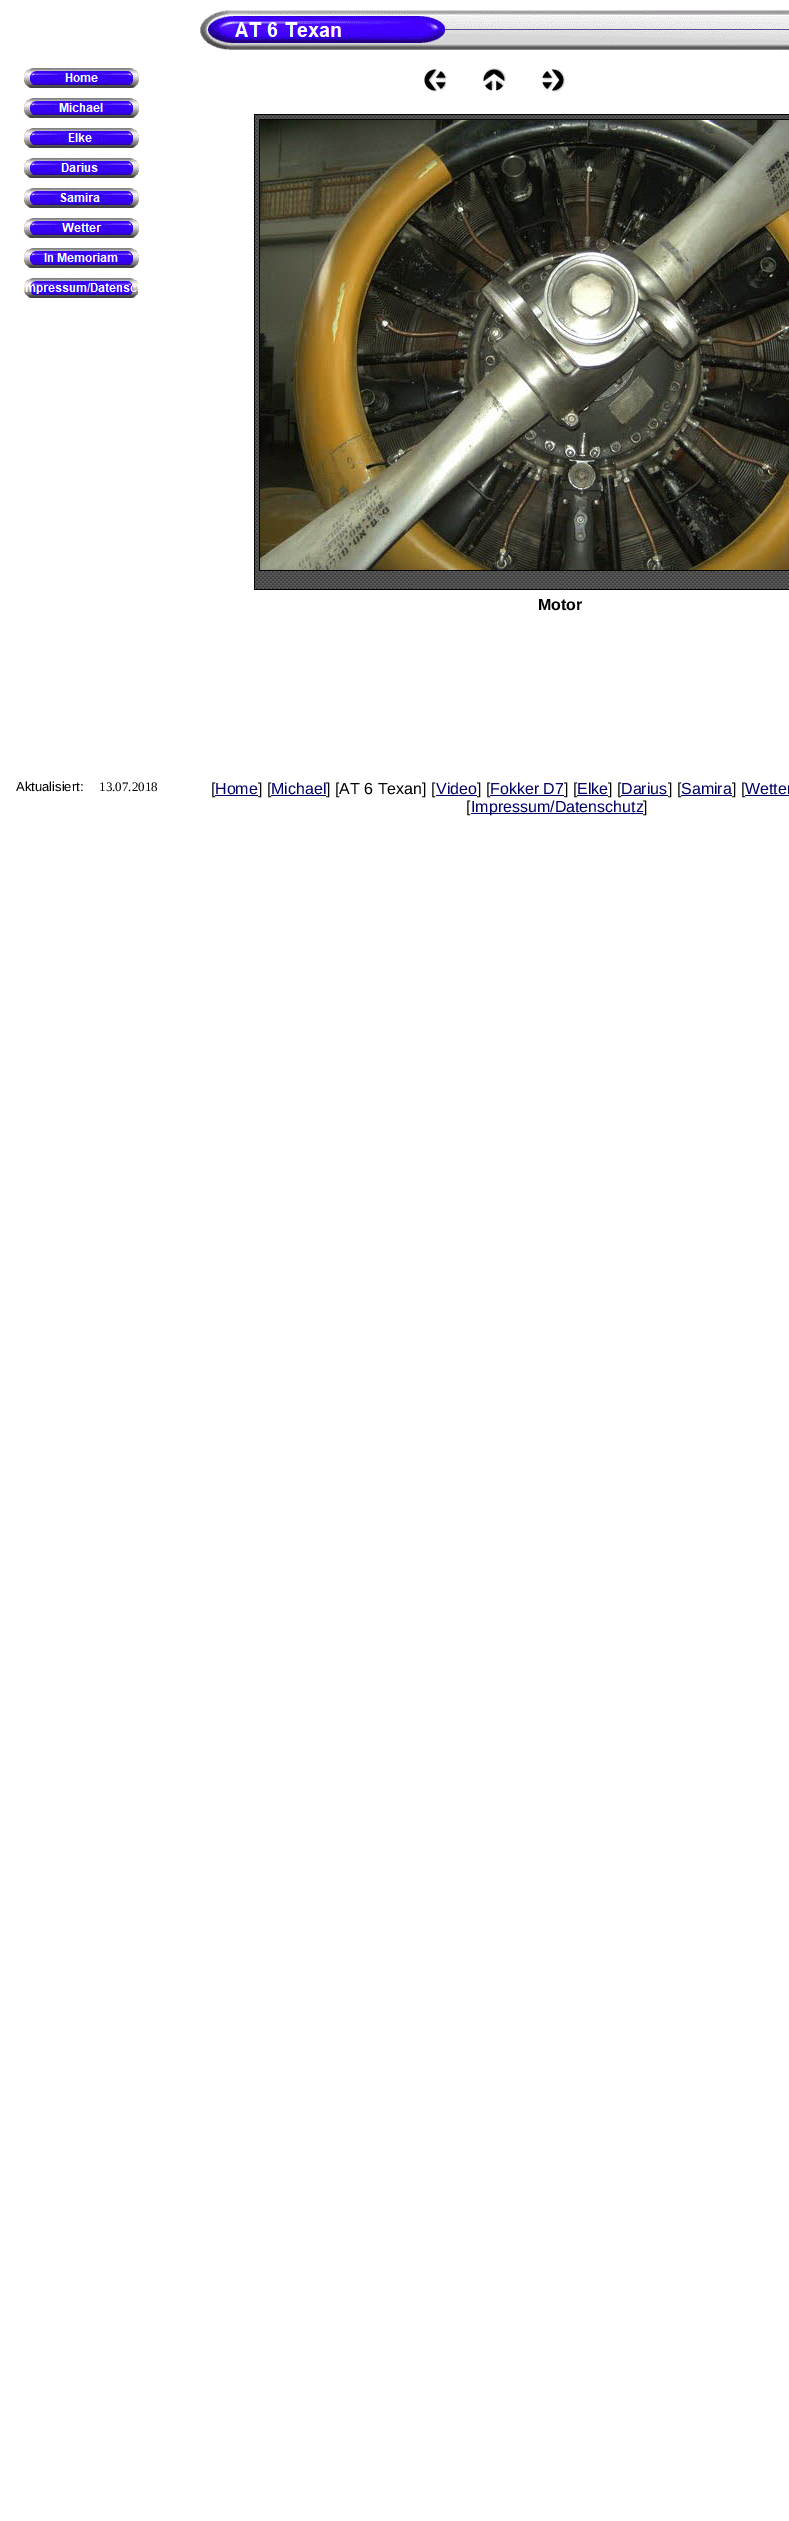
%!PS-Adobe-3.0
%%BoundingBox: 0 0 789 2521
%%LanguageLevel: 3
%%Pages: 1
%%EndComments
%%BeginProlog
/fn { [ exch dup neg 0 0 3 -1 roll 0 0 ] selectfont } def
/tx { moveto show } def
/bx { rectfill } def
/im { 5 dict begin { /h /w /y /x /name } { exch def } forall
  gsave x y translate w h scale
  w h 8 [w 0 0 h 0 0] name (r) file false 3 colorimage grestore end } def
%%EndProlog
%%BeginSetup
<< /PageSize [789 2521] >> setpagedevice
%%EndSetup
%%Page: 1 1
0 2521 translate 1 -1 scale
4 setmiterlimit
1 setgray
0 0 789 2521 bx
(image0.raw) 24 68 115 20 im
(image1.raw) 24 98 115 20 im
(image2.raw) 24 128 115 20 im
(image3.raw) 24 158 115 20 im
(image4.raw) 24 188 115 20 im
(image5.raw) 24 218 115 20 im
(image6.raw) 24 248 115 20 im
(image7.raw) 24 278 115 20 im
/LiberationSans-Regular 13 fn
0 setgray
(Aktualisiert:) 16 791 tx
/LiberationSerif-Regular 13 fn
(13.07.2018) 99 791 tx
(image8.raw) 200 10 589 40 im
(image9.raw) 424 69 23 23 im
(image10.raw) 483 68 23 23 im
(image11.raw) 542 69 23 23 im
(image12.raw) 254 114 6 6 im
(image13.raw) 260 114 529 6 im
(image14.raw) 254 120 6 450 im
(image15.raw) 260 120 529 450 im
(image16.raw) 254 570 6 20 im
(image17.raw) 260 570 529 20 im
/LiberationSans-Bold 16 fn
(Motor) 538 610 tx
/LiberationSans-Regular 16 fn
([) 211 794 tx
0 0 0.4 setrgbcolor
(Home) 215 794 tx
215 795 43 1 bx
0 setgray
(] [) 258 794 tx
0 0 0.4 setrgbcolor
(Michael) 271 794 tx
271 795 55 1 bx
0 setgray
(] [AT 6 Texan] [) 326 794 tx
0 0 0.4 setrgbcolor
(Video) 436 794 tx
436 795 41 1 bx
0 setgray
(] [) 477 794 tx
0 0 0.4 setrgbcolor
(Fokker D7) 490 794 tx
490 795 74 1 bx
0 setgray
(] [) 564 794 tx
0 0 0.4 setrgbcolor
(Elke) 577 794 tx
577 795 31 1 bx
0 setgray
(] [) 608 794 tx
0 0 0.4 setrgbcolor
(Darius) 621 794 tx
621 795 47 1 bx
0 setgray
(] [) 668 794 tx
0 0 0.4 setrgbcolor
(Samira) 681 794 tx
681 795 51 1 bx
0 setgray
(] [) 732 794 tx
0 0 0.4 setrgbcolor
(Wetter) 745 794 tx
745 795 44 1 bx
0 setgray
([) 466 812 tx
0 0 0.4 setrgbcolor
471 813 172 1 bx
(Impressum/Datenschutz) 471 812 tx
0 setgray
(]) 643 812 tx
showpage
%%EOF
